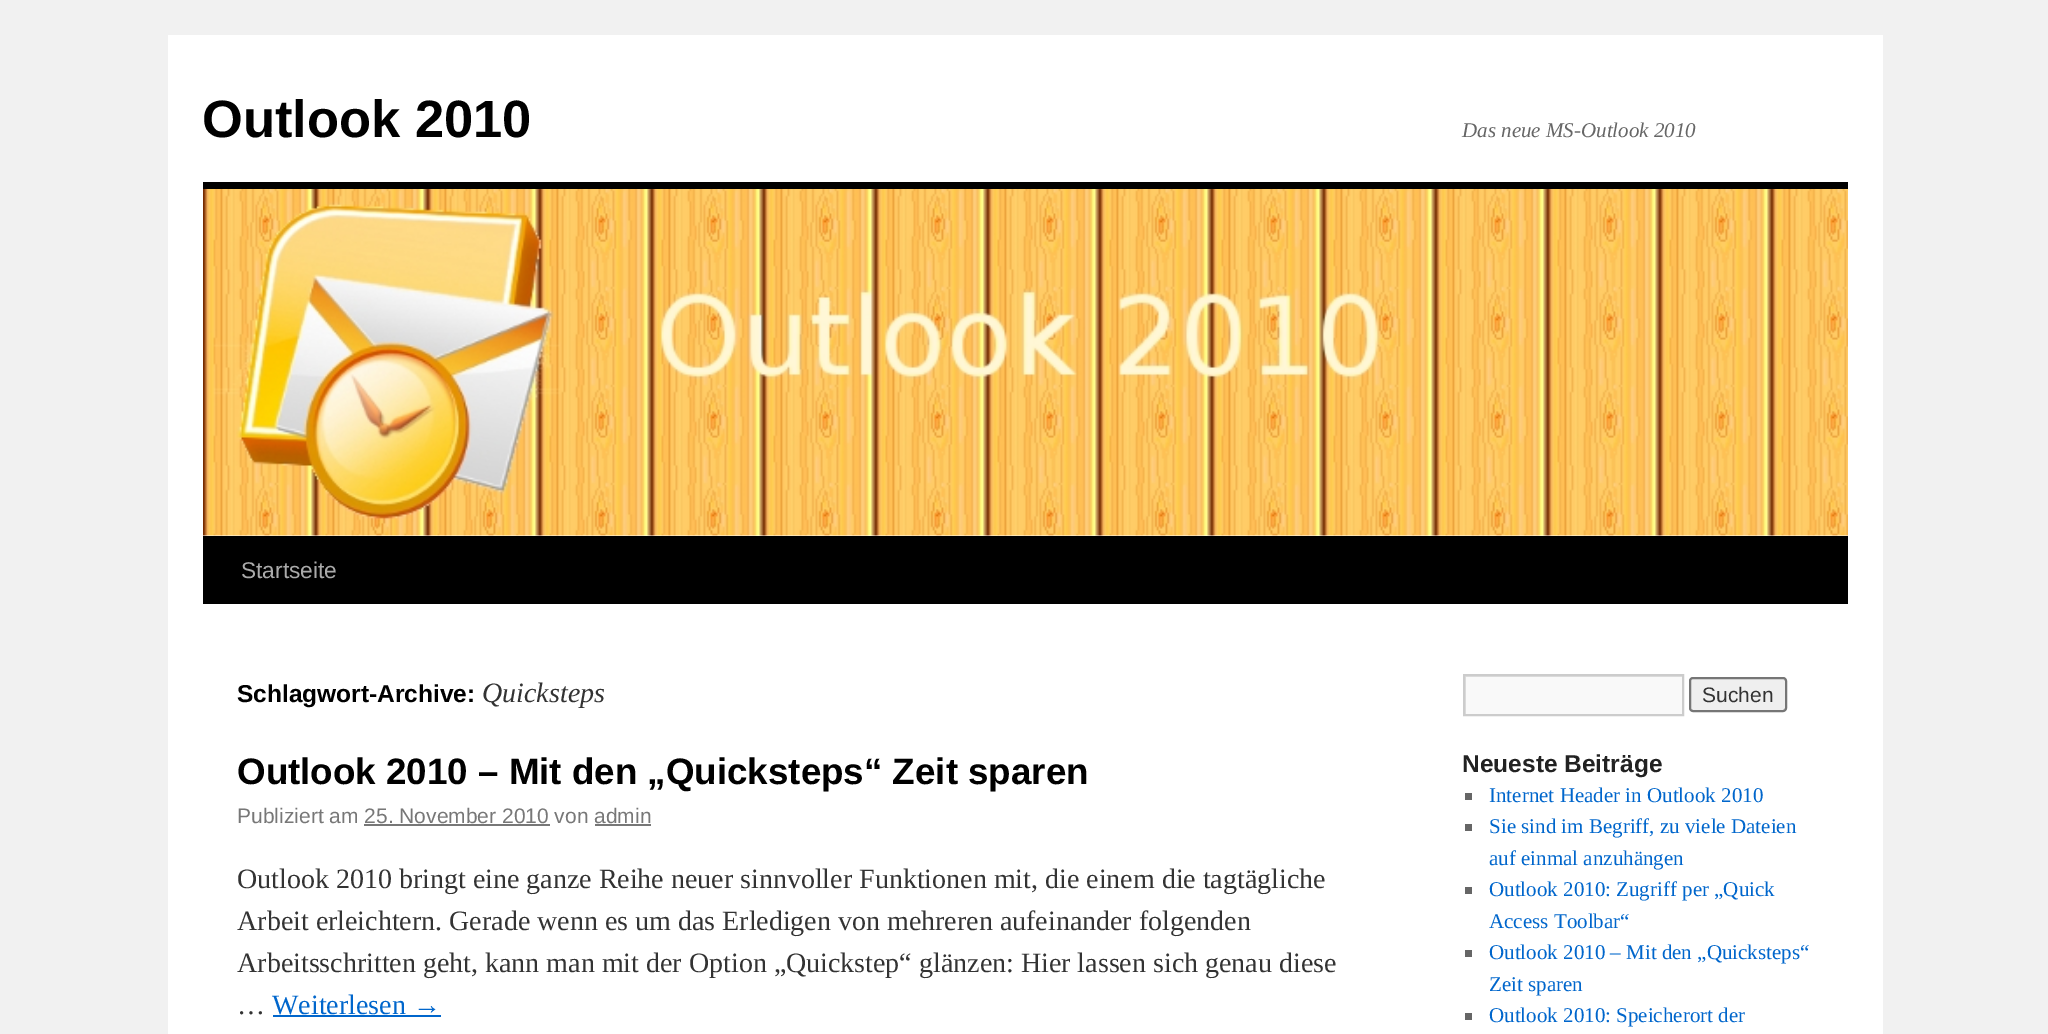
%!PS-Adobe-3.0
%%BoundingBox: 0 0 2048 1034
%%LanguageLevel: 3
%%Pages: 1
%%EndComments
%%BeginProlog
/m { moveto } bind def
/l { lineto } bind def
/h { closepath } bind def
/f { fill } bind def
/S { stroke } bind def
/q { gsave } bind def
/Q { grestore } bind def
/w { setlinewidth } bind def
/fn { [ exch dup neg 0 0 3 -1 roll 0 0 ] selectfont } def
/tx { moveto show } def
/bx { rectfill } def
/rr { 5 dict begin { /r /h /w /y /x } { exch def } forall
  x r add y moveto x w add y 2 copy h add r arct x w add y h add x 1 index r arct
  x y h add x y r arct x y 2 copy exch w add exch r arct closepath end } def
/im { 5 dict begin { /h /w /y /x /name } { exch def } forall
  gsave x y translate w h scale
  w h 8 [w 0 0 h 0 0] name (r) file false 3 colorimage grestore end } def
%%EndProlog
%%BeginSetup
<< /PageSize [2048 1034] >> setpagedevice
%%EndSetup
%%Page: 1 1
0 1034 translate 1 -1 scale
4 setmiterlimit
0.945 setgray
0 0 2048 1034 bx
1 setgray
168 35 1715 999 bx
/LiberationSans-Bold 52.5 fn
0 setgray
(Outlook 2010) 202 137 tx
/LiberationSerif-Italic 21 fn
0.4 setgray
(Das neue MS-Outlook 2010) 1462 137 tx
0 setgray
203 182 1645 7 bx
203 536 1645 68 bx
(image0.raw) 203 189 1645 347 im
/LiberationSans-Regular 22.75 fn
0.667 setgray
(Startseite) 241 578 tx
/LiberationSans-Bold 24.5 fn
0 setgray
(Schlagwort-Archive:) 237 702 tx
/LiberationSerif-Italic 28 fn
0.2 setgray
(Quicksteps) 482 702 tx
/LiberationSans-Bold 36.75 fn
0 setgray
(Outlook 2010 – Mit den „Quicksteps“ Zeit sparen) 237 784 tx
/LiberationSans-Regular 21 fn
0.467 setgray
(Publiziert am 25. November 2010 von admin) 237 823 tx
364 824 186 2 bx
595 824 56 2 bx
/LiberationSerif-Regular 28 fn
0.2 setgray
(Outlook 2010 bringt eine ganze Reihe neuer sinnvoller Funktionen mit, die einem die tagtägliche) 237 888 tx
(Arbeit erleichtern. Gerade wenn es um das Erledigen von mehreren aufeinander folgenden) 237 930 tx
(Arbeitsschritten geht, kann man mit der Option „Quickstep“ glänzen: Hier lassen sich genau diese) 237 972 tx
(…) 237 1014 tx
0 0.4 0.8 setrgbcolor
(Weiterlesen →) 272 1014 tx
273 1015 168 2 bx
0.976 setgray
1466 677 216 37 bx
q
1465 676 217 38 rectclip
0.878 setgray
1292 502 m 1855 502 l 1855 887 l 1292 887 l h 1466 677 m 1684 677 l 1684 716 l 1466 716 l h eofill
Q
0.8 setgray
2 w
1464 675 219 40 rectstroke
0.937 setgray
1690 678 96 33 3 rr q f Q
0.463 setgray
S
/LiberationSans-Regular 21 fn
0.2 setgray
(Suchen) 1702 702 tx
/LiberationSans-Bold 24.5 fn
0.133 setgray
(Neueste Beiträge) 1462 772 tx
0.4 setgray
1465 793 7 7 bx
/LiberationSerif-Regular 21 fn
0 0.4 0.8 setrgbcolor
(Internet Header in Outlook 2010) 1489 802 tx
0.4 setgray
1465 824 7 7 bx
0 0.4 0.8 setrgbcolor
(Sie sind im Begriff, zu viele Dateien) 1489 833 tx
(auf einmal anzuhängen) 1489 865 tx
0.4 setgray
1465 887 7 7 bx
0 0.4 0.8 setrgbcolor
(Outlook 2010: Zugriff per „Quick) 1489 896 tx
(Access Toolbar“) 1489 928 tx
0.4 setgray
1465 950 7 7 bx
0 0.4 0.8 setrgbcolor
(Outlook 2010 – Mit den „Quicksteps“) 1489 959 tx
(Zeit sparen) 1489 991 tx
0.4 setgray
1465 1013 7 7 bx
0 0.4 0.8 setrgbcolor
(Outlook 2010: Speicherort der) 1489 1022 tx
showpage
%%EOF
